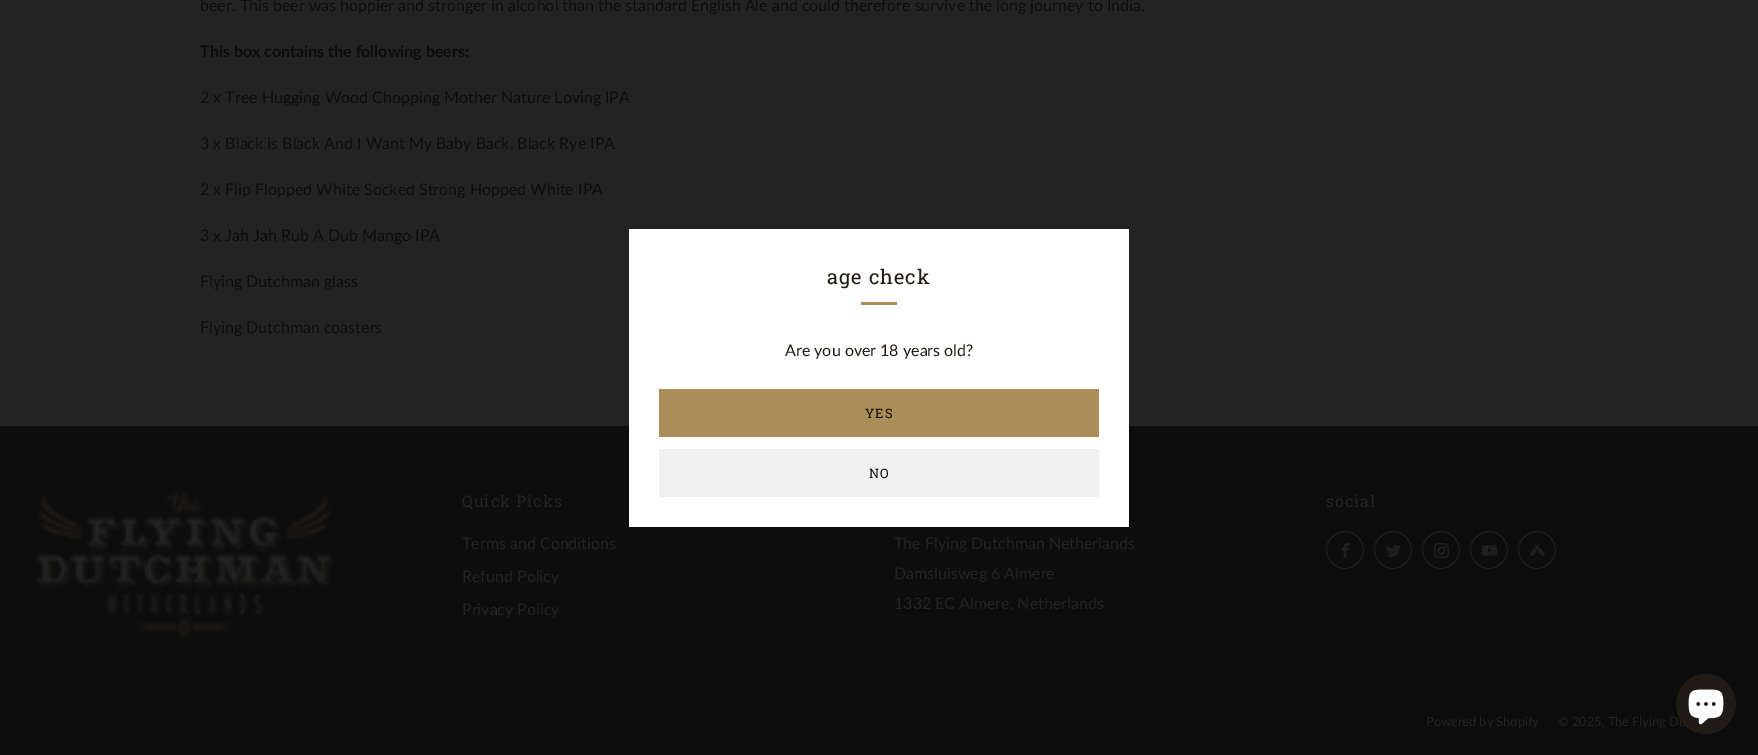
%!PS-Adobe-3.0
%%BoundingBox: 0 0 1758 755
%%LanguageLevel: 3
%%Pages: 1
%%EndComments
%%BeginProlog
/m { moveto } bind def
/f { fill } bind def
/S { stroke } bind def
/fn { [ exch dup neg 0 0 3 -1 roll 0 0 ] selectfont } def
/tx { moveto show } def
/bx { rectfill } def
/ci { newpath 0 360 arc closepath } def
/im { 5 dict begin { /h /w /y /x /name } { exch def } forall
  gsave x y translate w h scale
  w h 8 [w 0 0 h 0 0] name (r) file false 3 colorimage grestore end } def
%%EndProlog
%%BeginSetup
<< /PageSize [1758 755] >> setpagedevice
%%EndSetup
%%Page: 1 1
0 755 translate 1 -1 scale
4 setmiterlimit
0.137 setgray
0 0 1758 755 bx
/Lato-Regular 16 fn
0.051 0.051 0.047 setrgbcolor
(beer. This beer was hoppier and stronger in alcohol than the standard English Ale and could therefore survive the long journey to India.) 200 11 tx
/Lato-Bold 16 fn
(This box contains the following beers:) 200 57 tx
/Lato-Regular 16 fn
(2 x Tree Hugging Wood Chopping Mother Nature Loving IPA) 200 103 tx
(3 x Black is Black And I Want My Baby Back, Black Rye IPA) 200 149 tx
(2 x Flip Flopped White Socked Strong Hopped White IPA) 200 195 tx
(3 x Jah Jah Rub A Dub Mango IPA) 200 241 tx
(Flying Dutchman glass) 200 287 tx
(Flying Dutchman coasters) 200 333 tx
0.051 setgray
0 426 1758 263 bx
1 setgray
629 229 500 298 bx
/RobotoSlab-Regular 20 fn
0.133 0.106 0.075 setrgbcolor
827 284 m 1 0 (age check) ashow
0.671 0.553 0.345 setrgbcolor
861 302 36 3 bx
/Lato-Regular 16 fn
0.133 0.106 0.075 setrgbcolor
(Are you over 18 years old?) 785 356 tx
0.671 0.553 0.345 setrgbcolor
659 389 440 48 bx
/RobotoSlab-Regular 13 fn
0.051 0.051 0.047 setrgbcolor
865 418 m 1 0 (YES) ashow
0.941 setgray
659 449 440 48 bx
0.051 0.051 0.047 setrgbcolor
869 478 m 1 0 (NO) ashow
(image0.raw) 35 488 300 151 im
/RobotoSlab-Regular 16 fn
0.137 setgray
462 507 m 1 0 (Quick Picks) ashow
/Lato-Regular 16 fn
(Terms and Conditions) 462 549 tx
(Refund Policy) 462 582 tx
(Privacy Policy) 462 615 tx
/RobotoSlab-Regular 16 fn
1326 507 m 1 0 (social) ashow
0.122 setgray
1345 550 18.5 ci S
(image1.raw) 1341 542 9 16 im
1393 550 18.5 ci S
(image2.raw) 1386 544 15 13 im
1441 550 18.5 ci S
(image3.raw) 1434 543 15 15 im
1489 550 18.5 ci S
(image4.raw) 1482 545 15 11 im
1537 550 18.5 ci S
(image5.raw) 1530 544 15 13 im
/Lato-Regular 16 fn
0.137 setgray
(The Flying Dutchman Netherlands) 894 549 tx
(Damsluisweg 6 Almere) 894 579 tx
(1332 EC Almere, Netherlands) 894 609 tx
0.047 setgray
0 689 1758 66 bx
/Lato-Regular 12.75 fn
0.137 setgray
(Powered by Shopify) 1426 726 tx
(© 2025, The Flying Du) 1558 726 tx
0.133 0.106 0.082 setrgbcolor
1706 704 30 ci f
(image6.raw) 1688 689 36 36 im
showpage
%%EOF
